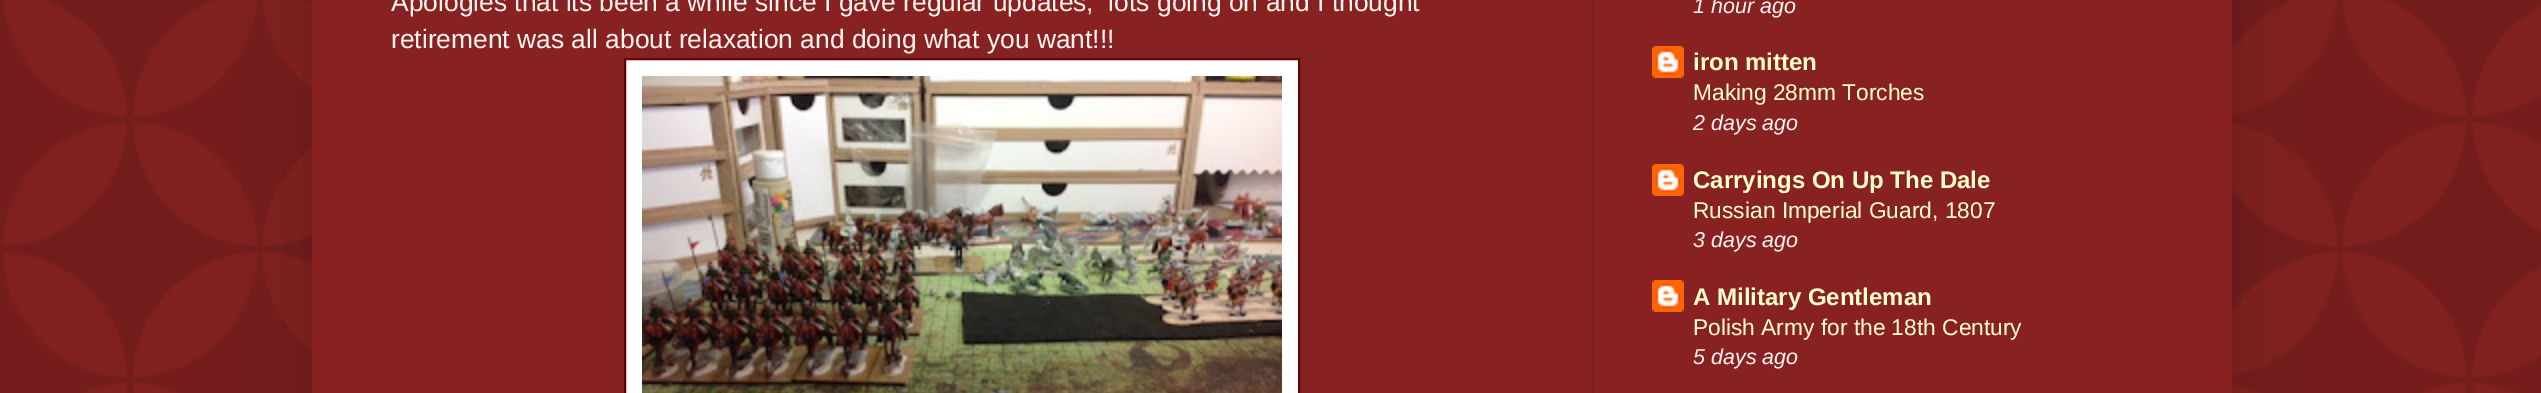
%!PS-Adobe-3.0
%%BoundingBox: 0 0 2541 393
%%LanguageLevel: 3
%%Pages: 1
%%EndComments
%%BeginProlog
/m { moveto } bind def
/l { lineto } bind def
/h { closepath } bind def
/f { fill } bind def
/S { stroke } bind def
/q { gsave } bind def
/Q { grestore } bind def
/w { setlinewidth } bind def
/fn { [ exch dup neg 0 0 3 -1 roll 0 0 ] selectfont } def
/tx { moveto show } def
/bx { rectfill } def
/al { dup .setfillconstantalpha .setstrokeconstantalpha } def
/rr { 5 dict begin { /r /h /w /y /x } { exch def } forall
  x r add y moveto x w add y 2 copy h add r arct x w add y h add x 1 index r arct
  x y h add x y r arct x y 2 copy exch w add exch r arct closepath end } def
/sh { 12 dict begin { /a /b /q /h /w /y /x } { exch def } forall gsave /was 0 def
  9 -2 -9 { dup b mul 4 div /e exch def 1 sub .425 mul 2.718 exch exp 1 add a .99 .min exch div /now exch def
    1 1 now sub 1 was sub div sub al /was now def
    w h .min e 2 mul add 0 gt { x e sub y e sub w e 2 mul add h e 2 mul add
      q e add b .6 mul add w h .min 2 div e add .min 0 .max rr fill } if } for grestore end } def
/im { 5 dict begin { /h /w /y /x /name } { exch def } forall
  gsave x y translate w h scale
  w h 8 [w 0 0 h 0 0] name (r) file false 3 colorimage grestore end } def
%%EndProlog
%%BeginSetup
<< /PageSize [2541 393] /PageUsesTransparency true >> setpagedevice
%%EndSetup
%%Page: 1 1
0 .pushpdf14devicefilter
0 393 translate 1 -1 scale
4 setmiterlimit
0.533 0.133 0.133 setrgbcolor
0 0 2541 393 bx
(image0.raw) 0 0 2541 393 im
0 setgray
312 -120 1920 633 0 40 0.15 sh
0.533 0.133 0.133 setrgbcolor
312 0 1920 393 bx
/LiberationSans-Regular 26.4 fn
1 0.961 0.933 setrgbcolor
(Apologies that its been a while since I gave regular updates,  lots going on and I thought) 391 11 tx
(retirement was all about relaxation and doing what you want!!!) 391 48 tx
0 setgray
626 60 676 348 0 5 0.1 sh
1 setgray
625 59 m 1299 59 l 1299 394 l 625 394 l h q f Q
0.4 0 0 setrgbcolor
2 w
S
(image1.raw) 642 76 640 317 im
/LiberationSans-Italic 21.5 fn
1 0.961 0.933 setrgbcolor
(1 hour ago) 1693 13 tx
(image2.raw) 1652 46 32 32 im
/LiberationSans-Bold 24 fn
1 1 0.8 setrgbcolor
(iron mitten) 1693 70 tx
/LiberationSans-Regular 22.75 fn
(Making 28mm Torches) 1693 100 tx
/LiberationSans-Italic 21.5 fn
1 0.961 0.933 setrgbcolor
(2 days ago) 1693 130 tx
(image2.raw) 1652 164 32 32 im
/LiberationSans-Bold 24 fn
1 1 0.8 setrgbcolor
(Carryings On Up The Dale) 1693 188 tx
/LiberationSans-Regular 22.75 fn
(Russian Imperial Guard, 1807) 1693 218 tx
/LiberationSans-Italic 21.5 fn
1 0.961 0.933 setrgbcolor
(3 days ago) 1693 247 tx
(image2.raw) 1652 280 32 32 im
/LiberationSans-Bold 24 fn
1 1 0.8 setrgbcolor
(A Military Gentleman) 1693 305 tx
/LiberationSans-Regular 22.75 fn
(Polish Army for the 18th Century) 1693 335 tx
/LiberationSans-Italic 21.5 fn
1 0.961 0.933 setrgbcolor
(5 days ago) 1693 364 tx
0.467 0.133 0.133 setrgbcolor
1592 0 2 393 bx
.poppdf14devicefilter showpage
%%EOF
